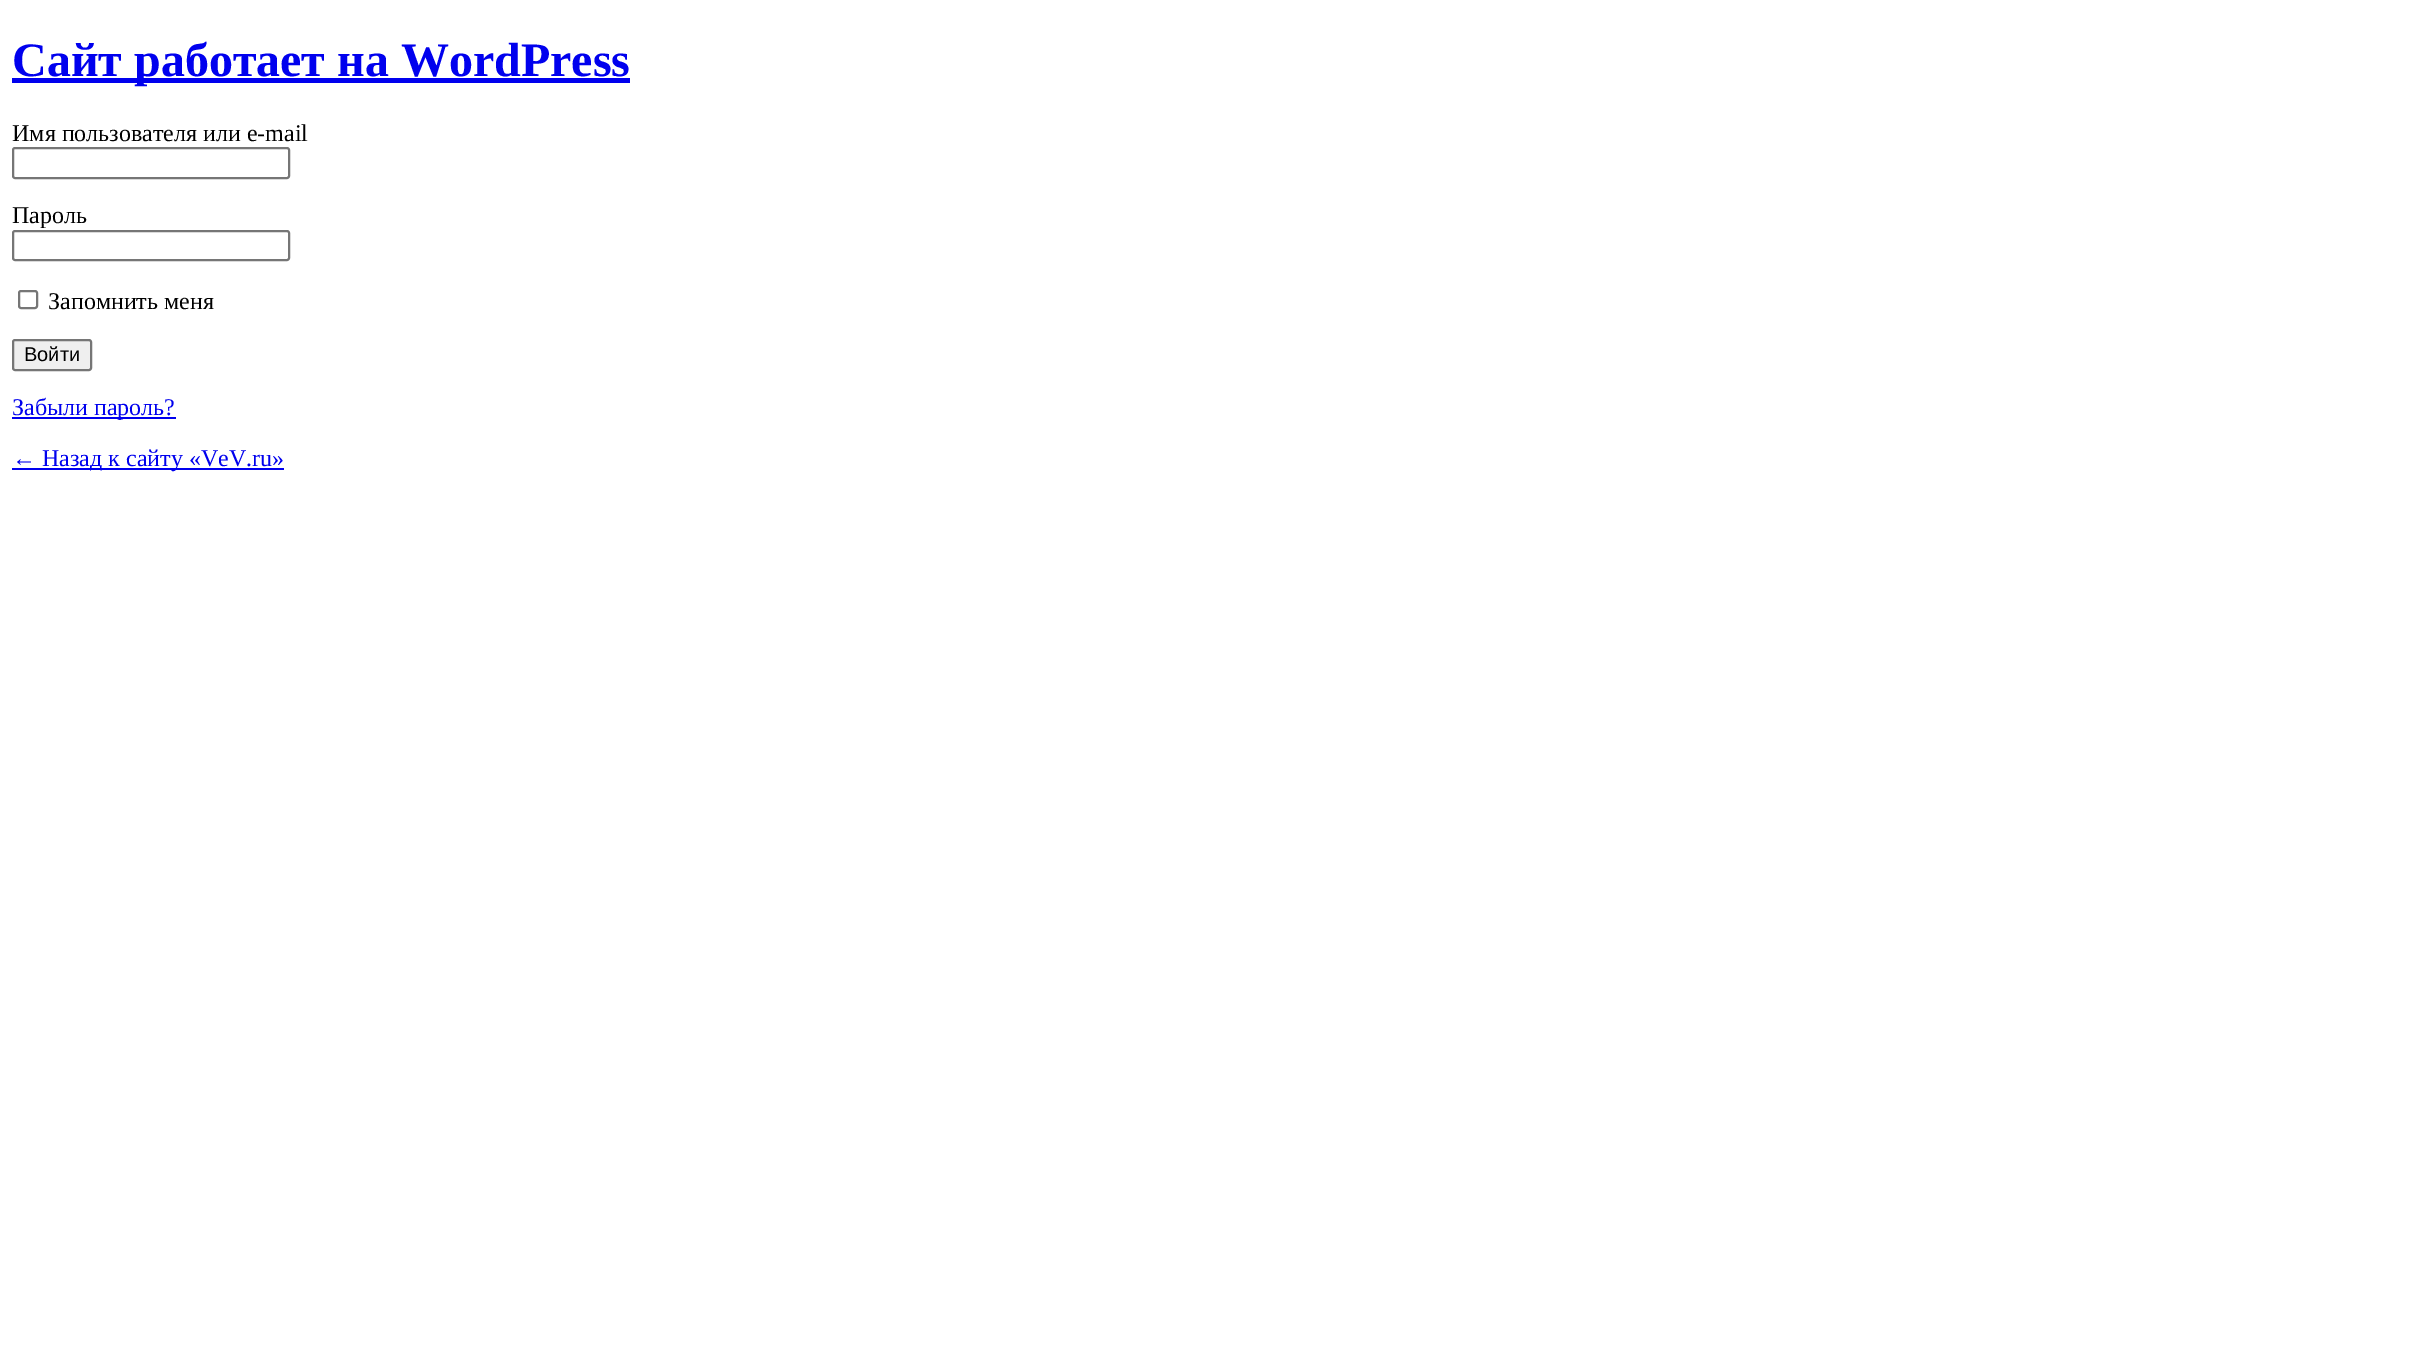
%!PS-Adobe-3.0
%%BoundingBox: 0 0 2416 1372
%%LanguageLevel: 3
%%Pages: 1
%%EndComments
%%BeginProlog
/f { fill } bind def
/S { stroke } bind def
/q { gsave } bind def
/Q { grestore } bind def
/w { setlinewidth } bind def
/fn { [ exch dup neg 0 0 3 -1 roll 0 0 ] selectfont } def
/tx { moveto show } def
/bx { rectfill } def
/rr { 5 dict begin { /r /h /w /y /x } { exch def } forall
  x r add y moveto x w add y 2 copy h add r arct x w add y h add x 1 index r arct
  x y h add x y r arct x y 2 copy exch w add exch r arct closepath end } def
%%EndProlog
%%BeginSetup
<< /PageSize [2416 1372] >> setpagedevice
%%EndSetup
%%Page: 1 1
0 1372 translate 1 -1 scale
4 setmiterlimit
1 setgray
0 0 2416 1372 bx
0 0 0.933 setrgbcolor
12 78 618 5 bx
/LiberationSerif-Bold 48 fn
(Сайт работает на WordPress) 12 76 tx
/LiberationSerif-Regular 24 fn
0 setgray
(Имя пользователя или e-mail) 12 141 tx
0.463 setgray
2 w
13 148 276 30 2 rr S
0 setgray
(Пароль) 12 223 tx
0.463 setgray
13 231 276 29 2 rr S
19 291 18 17 2 rr S
0 setgray
(Запомнить меня) 48 309 tx
0.937 setgray
13 340 78 30 2 rr q f Q
0.463 setgray
S
/LiberationSans-Regular 20 fn
0 setgray
(Войти) 24 361 tx
0 0 0.933 setrgbcolor
12 417 164 2 bx
/LiberationSerif-Regular 24 fn
(Забыли пароль?) 12 415 tx
12 468 272 2 bx
(← Назад к сайту «VeV.ru») 12 466 tx
showpage
%%EOF
